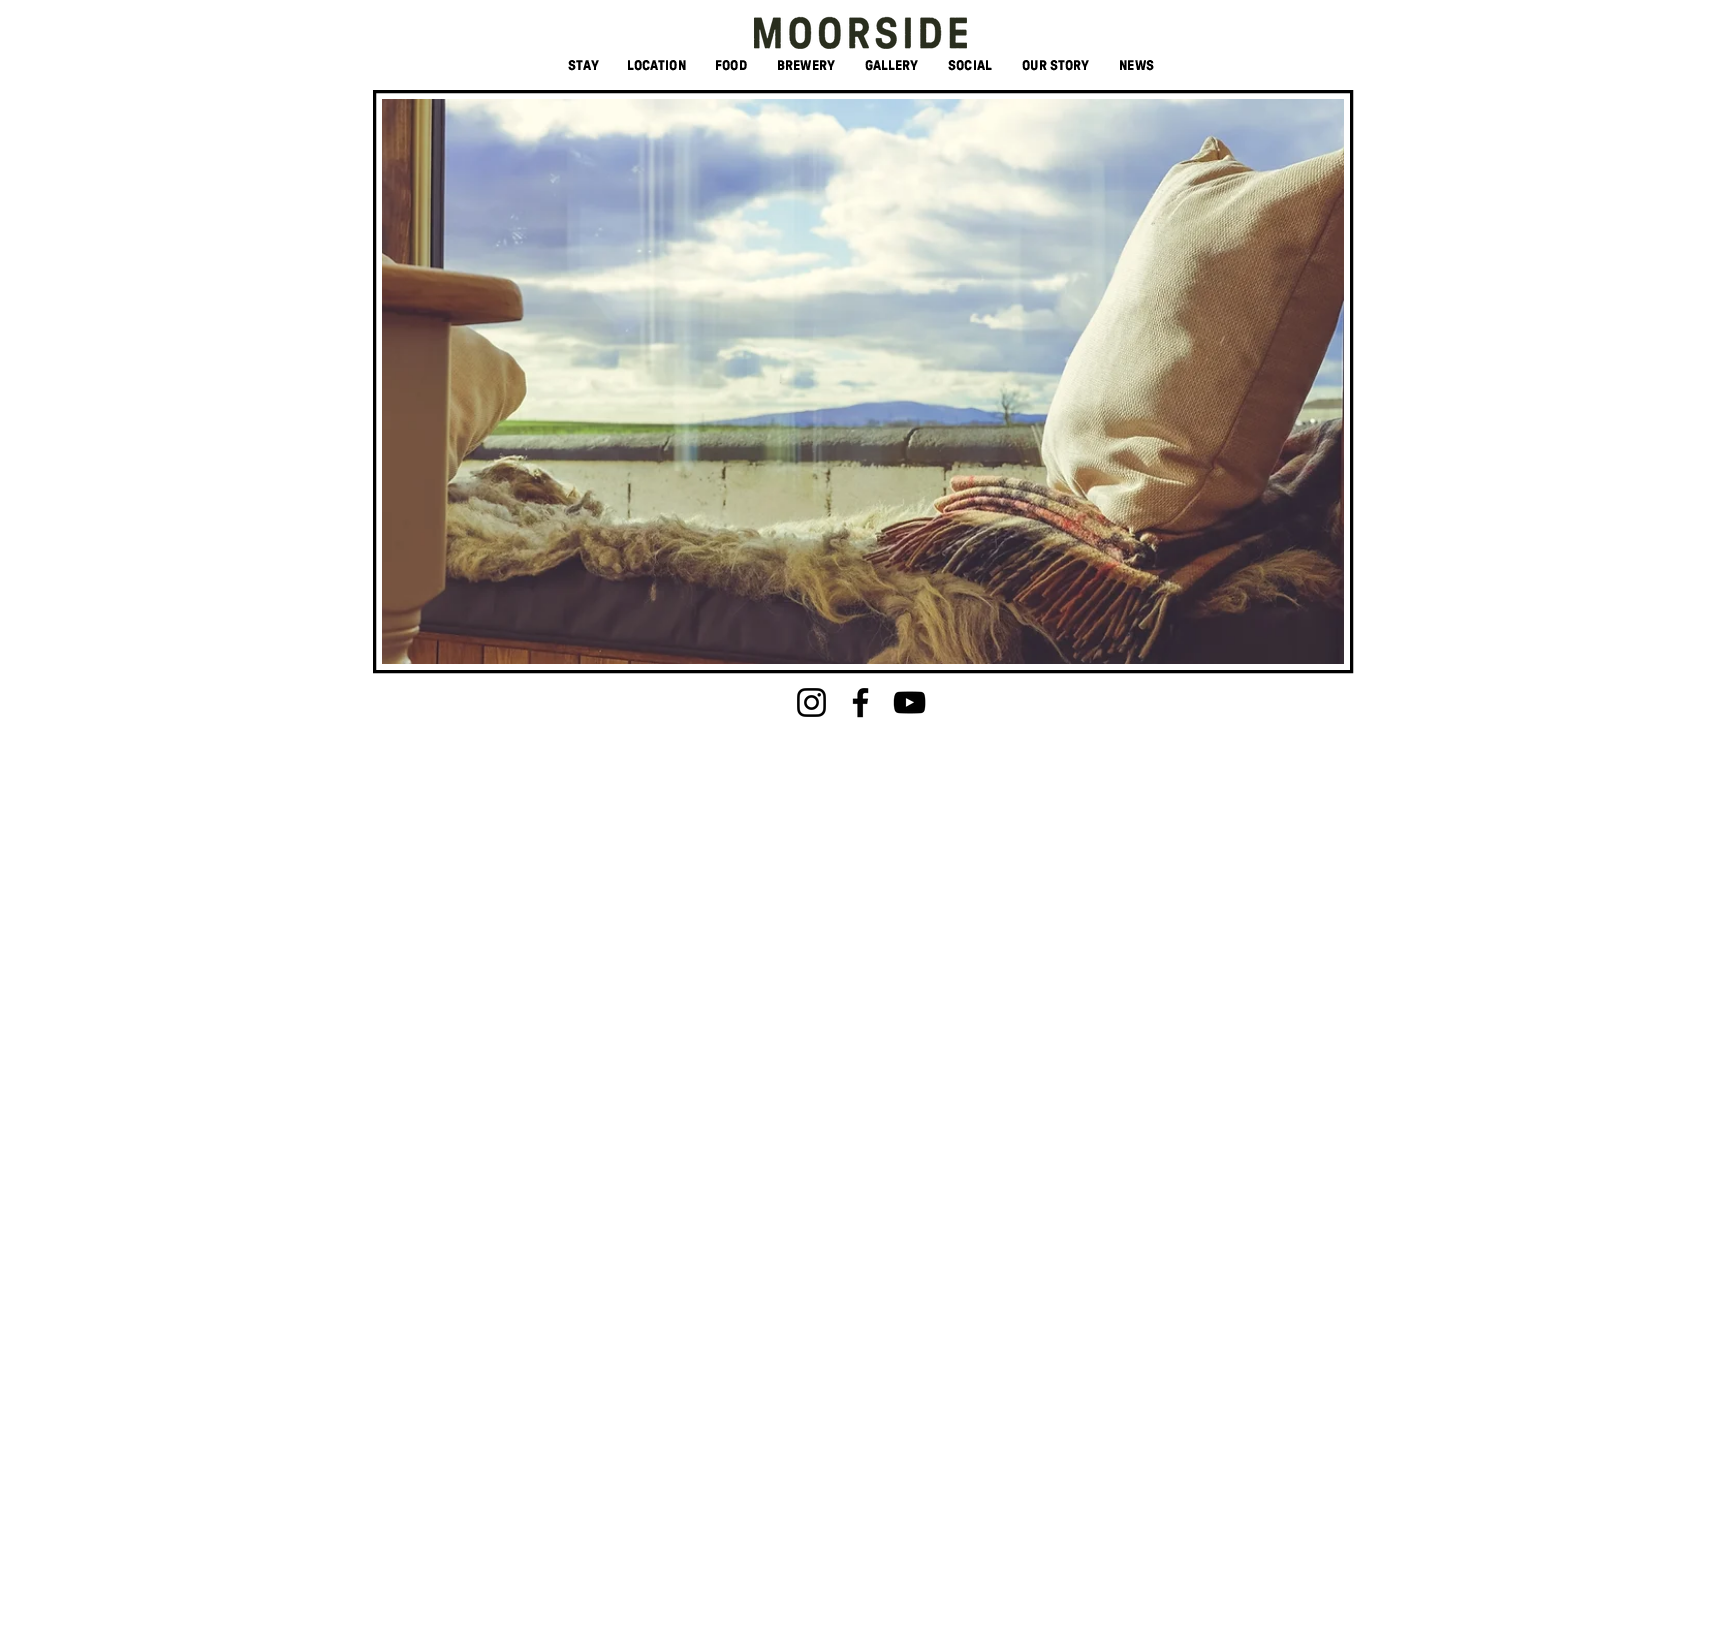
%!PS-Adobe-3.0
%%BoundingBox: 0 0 1721 1652
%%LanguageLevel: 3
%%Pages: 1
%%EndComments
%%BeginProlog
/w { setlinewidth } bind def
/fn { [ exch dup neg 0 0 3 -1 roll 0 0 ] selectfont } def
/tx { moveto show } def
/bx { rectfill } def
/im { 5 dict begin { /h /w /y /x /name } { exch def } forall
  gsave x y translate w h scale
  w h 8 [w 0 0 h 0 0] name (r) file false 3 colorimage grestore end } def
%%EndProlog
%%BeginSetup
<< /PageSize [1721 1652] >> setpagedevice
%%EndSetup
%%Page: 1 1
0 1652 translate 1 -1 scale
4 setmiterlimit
1 setgray
0 0 1721 1652 bx
(image0.raw) 754 16 213 33 im
/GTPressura-Bold 14 fn
0 setgray
(STAY) 568 70 tx
(LOCATION) 627 70 tx
(FOOD) 715 70 tx
(BREWERY) 777 70 tx
(GALLERY) 865 70 tx
(SOCIAL) 948 70 tx
(OUR STORY) 1022 70 tx
(NEWS) 1119 70 tx
3 w
374.5 91.5 977 580 rectstroke
(image1.raw) 382 99 962 565 im
(image2.raw) 797 688 29 29 im
(image3.raw) 852 688 17 30 im
(image4.raw) 893 691 33 23 im
showpage
%%EOF
